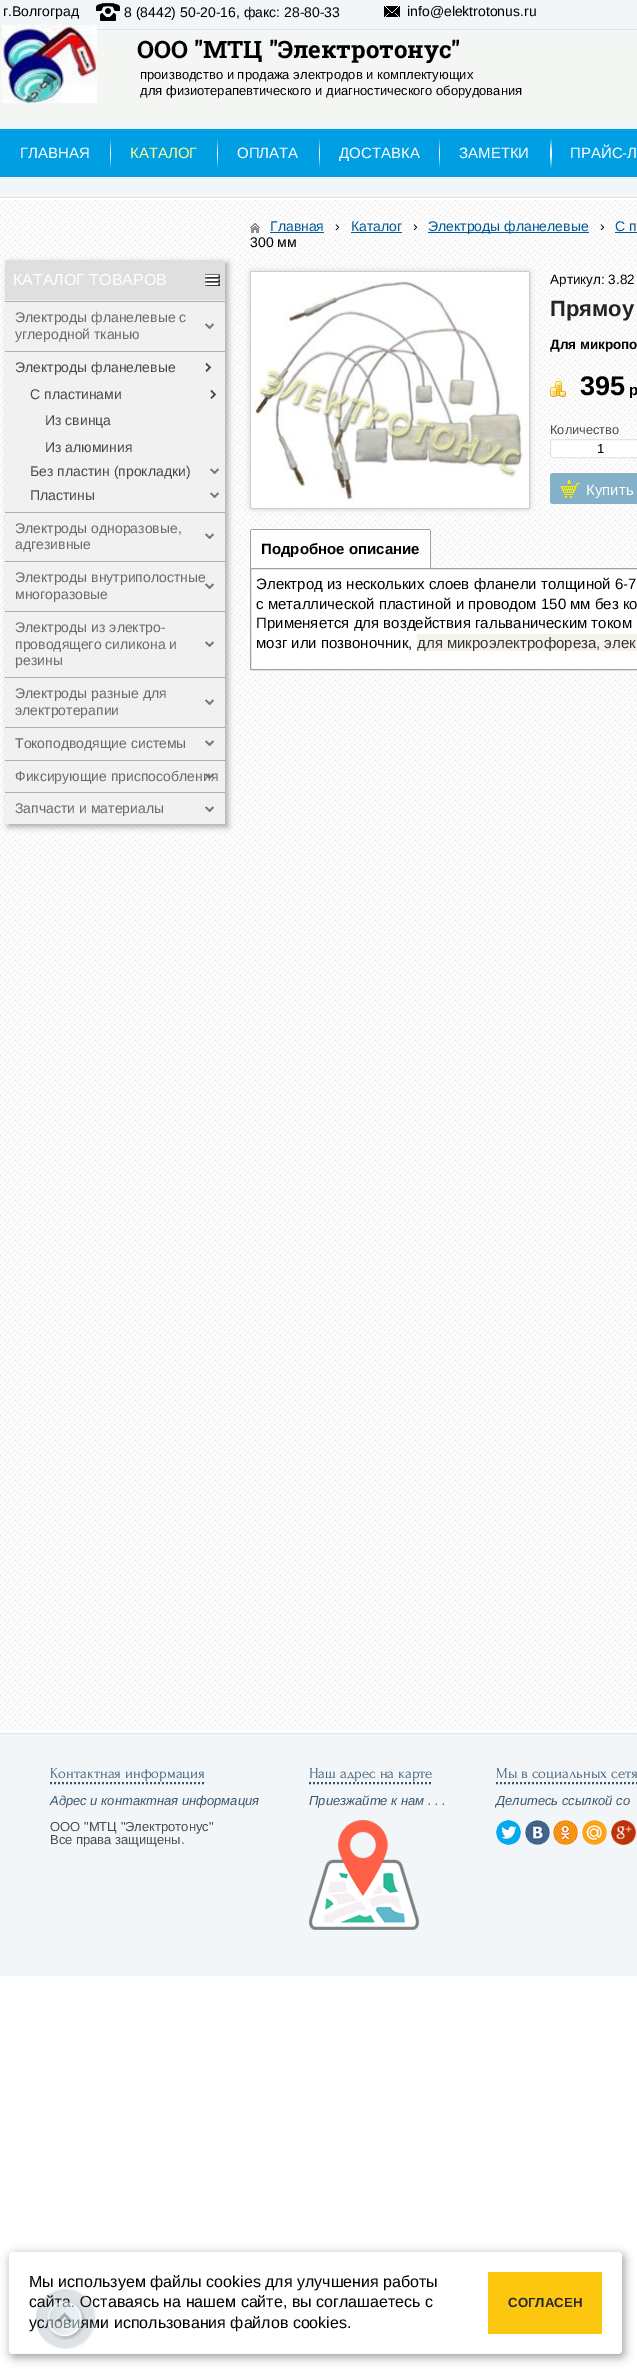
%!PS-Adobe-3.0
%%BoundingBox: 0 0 637 2369
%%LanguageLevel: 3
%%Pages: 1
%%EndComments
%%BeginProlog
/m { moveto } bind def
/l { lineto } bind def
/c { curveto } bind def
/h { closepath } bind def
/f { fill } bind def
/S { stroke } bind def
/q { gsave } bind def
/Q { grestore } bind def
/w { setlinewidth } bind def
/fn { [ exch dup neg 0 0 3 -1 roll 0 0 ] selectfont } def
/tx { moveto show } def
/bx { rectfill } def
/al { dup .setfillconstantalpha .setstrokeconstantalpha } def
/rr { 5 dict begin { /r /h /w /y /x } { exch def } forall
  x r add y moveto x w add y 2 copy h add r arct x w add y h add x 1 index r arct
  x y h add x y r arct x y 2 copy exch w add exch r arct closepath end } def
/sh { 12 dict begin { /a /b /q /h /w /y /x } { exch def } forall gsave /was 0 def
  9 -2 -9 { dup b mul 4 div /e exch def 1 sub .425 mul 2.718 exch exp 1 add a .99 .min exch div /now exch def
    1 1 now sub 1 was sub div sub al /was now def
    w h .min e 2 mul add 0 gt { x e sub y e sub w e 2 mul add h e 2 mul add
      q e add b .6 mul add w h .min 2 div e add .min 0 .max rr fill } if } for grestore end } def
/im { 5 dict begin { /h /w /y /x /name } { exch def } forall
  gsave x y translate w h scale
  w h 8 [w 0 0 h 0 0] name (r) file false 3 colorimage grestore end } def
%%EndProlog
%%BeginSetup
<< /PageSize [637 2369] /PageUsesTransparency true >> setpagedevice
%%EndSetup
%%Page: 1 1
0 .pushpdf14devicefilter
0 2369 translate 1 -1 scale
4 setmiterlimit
1 setgray
0 0 637 2369 bx
(image0.raw) 0 0 637 1730 im
(image1.raw) 0 26 637 1950 im
/LiberationSans-Regular 14 fn
0 setgray
(г.Волгоград) 3 16 tx
(image2.raw) 96 3 24 18 im
(8 \(8442\) 50-20-16, факс: 28-80-33) 124 17 tx
(image3.raw) 384 6 16 11 im
(info@elektrotonus.ru) 407 16 tx
(image4.raw) 2 25 95 78 im
/RobotoSlab-Bold 24 fn
(ООО "МТЦ "Электротонус") 137 58 tx
/LiberationSans-Regular 13 fn
(производство и продажа электродов и комплектующих) 140 79 tx
(для физиотерапевтического и диагностического оборудования) 140 95 tx
/LiberationSans-Regular 15 fn
1 setgray
(ГЛАВНАЯ) 20 158 tx
(image5.raw) 110 138 1 31 im
1 0.984 0.592 setrgbcolor
(КАТАЛОГ) 130 158 tx
(image5.raw) 217 138 1 31 im
1 setgray
(ОПЛАТА) 237 158 tx
(image5.raw) 319 138 1 31 im
(ДОСТАВКА) 339 158 tx
(image5.raw) 439 138 1 31 im
(ЗАМЕТКИ) 459 158 tx
(image6.raw) 550 138 2 31 im
(ПРАЙС-Л) 570 158 tx
0.667 setgray
8 263 220 564 0 3 1 sh
0.945 setgray
5 260 220 564 bx
0.875 setgray
8 260 m 222 260 l 223.5 260 225 261.5 225 263 c 225 300 l 5 300 l 5 263 l 5 261.5 6.5 260 8 260 c h f
(image7.raw) 205 274 15 12 im
/LiberationSans-Regular 16 fn
1 setgray
(КАТАЛОГ ТОВАРОВ) 13 285 tx
0.682 setgray
5 301 220 1 bx
(image8.raw) 205 323 9 6 im
/LiberationSans-Regular 14 fn
0.42 setgray
(Электроды фланелевые с) 15 322 tx
(углеродной тканью) 15 339 tx
0.682 setgray
5 351 220 1 bx
(image9.raw) 205 363 6 9 im
0.294 0.29 0.29 setrgbcolor
(Электроды фланелевые) 15 372 tx
(image9.raw) 210 390 6 9 im
(С пластинами) 30 399 tx
(Из свинца) 45 425 tx
(Из алюминия) 45 452 tx
(image8.raw) 210 468 9 6 im
(Без пластин \(прокладки\)) 30 476 tx
(image8.raw) 210 492 9 6 im
(Пластины) 30 500 tx
0.682 setgray
5 512 220 1 bx
(image8.raw) 205 533 9 6 im
0.42 setgray
(Электроды одноразовые,) 15 533 tx
(адгезивные) 15 549 tx
0.682 setgray
5 561 220 1 bx
(image8.raw) 205 583 9 6 im
0.42 setgray
(Электроды внутриполостные) 15 582 tx
(многоразовые) 15 599 tx
0.682 setgray
5 611 220 1 bx
(image8.raw) 205 641 9 6 im
0.42 setgray
(Электроды из электро-) 15 632 tx
(проводящего силикона и) 15 649 tx
(резины) 15 665 tx
0.682 setgray
5 677 220 1 bx
(image8.raw) 205 699 9 6 im
0.42 setgray
(Электроды разные для) 15 698 tx
(электротерапии) 15 715 tx
0.682 setgray
5 727 220 1 bx
(image8.raw) 205 740 9 6 im
0.42 setgray
(Токоподводящие системы) 15 748 tx
0.682 setgray
5 760 220 1 bx
(image8.raw) 205 773 9 6 im
0.42 setgray
(Фиксирующие приспособления) 15 781 tx
0.682 setgray
5 792 220 1 bx
(image8.raw) 205 806 9 6 im
0.42 setgray
(Запчасти и материалы) 15 813 tx
(image10.raw) 250 223 10 10 im
0 0.349 0.596 setrgbcolor
(Главная) 270 231 tx
270 232 54 1 bx
0 setgray
(›) 335 231 tx
0 0.349 0.596 setrgbcolor
(Каталог) 351 231 tx
351 232 51 1 bx
0 setgray
(›) 413 231 tx
0 0.349 0.596 setrgbcolor
428 232 161 1 bx
(Электроды фланелевые) 428 231 tx
0 setgray
(›) 600 231 tx
0 0.349 0.596 setrgbcolor
(С п) 615 231 tx
615 232 22 1 bx
0 setgray
(300 мм) 250 247 tx
0.875 setgray
249 270 282 240 3 2.5 1 sh
0.804 setgray
250.5 271.5 279 237 1.5 rr S
(image11.raw) 251 272 278 236 im
/LiberationSans-Regular 13.5 fn
0 setgray
(Артикул: 3.82) 550 284 tx
/LiberationSans-Bold 22 fn
0.137 setgray
(Прямоу) 550 316 tx
/LiberationSans-Bold 13.5 fn
0 setgray
(Для микропо) 550 349 tx
(image12.raw) 550 381 16 16 im
/LiberationSans-Bold 27 fn
(395) 580 395 tx
/LiberationSans-Bold 15 fn
(р) 629 395 tx
/LiberationSans-Regular 12.75 fn
0.294 0.29 0.29 setrgbcolor
(Количество) 550 434 tx
1 setgray
550.5 439.5 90 18 2.5 rr q f Q
0.898 setgray
S
/LiberationSans-Regular 13 fn
0 setgray
(1) 597 453 tx
0.514 0.698 0.784 setrgbcolor
550 473 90 31 3 rr f
(image13.raw) 560 480 20 18 im
/LiberationSans-Regular 15 fn
1 setgray
(Купить) 586 495 tx
0.996 0.996 0.992 setrgbcolor
252 529 m 429 529 l 430 529 431 530 431 531 c 431 568 l 250 568 l 250 531 l 250 530 251 529 252 529 c h f
0.624 setgray
251 529 179 1 bx
430 530 1 38 bx
250 530 1 38 bx
/LiberationSans-Bold 15 fn
0 setgray
(Подробное описание) 261 554 tx
1 setgray
250.5 568.5 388 101 0.5 rr q f Q
0.624 setgray
S
/LiberationSans-Regular 15 fn
0 setgray
(Электрод из нескольких слоев фланели толщиной 6-7) 256 589 tx
(с металлической пластиной и проводом 150 мм без ко) 256 609 tx
(Применяется для воздействия гальваническим током) 256 628 tx
(мозг или позвоночник,) 256 648 tx
0.961 0.945 0.929 setrgbcolor
417 634 220 17 bx
0.2 setgray
(для микроэлектрофореза, элек) 417 648 tx
/Forum-Regular 15 fn
0.227 0.333 0.42 setrgbcolor
(Контактная информация) 50 1778 tx
2 w
[2 2] 0 setdash
50 1783 m 205 1783 l S
/LiberationSans-Italic 13 fn
(Адрес и контактная информация) 50 1805 tx
/LiberationSans-Regular 13 fn
0.275 0.302 0.318 setrgbcolor
(ООО "МТЦ "Электротонус") 50 1831 tx
(Все права защищены.) 50 1844 tx
/Forum-Regular 15 fn
0.227 0.333 0.42 setrgbcolor
(Наш адрес на карте) 309 1778 tx
309 1783 m 433 1783 l S
/LiberationSans-Italic 13 fn
(Приезжайте к нам . . .) 309 1805 tx
(image14.raw) 309 1820 110 110 im
/Forum-Regular 15 fn
(Мы в социальных сетя) 496 1778 tx
496 1783 m 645 1783 l S
/LiberationSans-Italic 13 fn
(Делитесь ссылкой со) 496 1805 tx
(image15.raw) 496 1820 25 25 im
(image16.raw) 525 1820 25 25 im
(image17.raw) 553 1820 25 25 im
(image18.raw) 582 1820 25 25 im
(image19.raw) 611 1820 25 25 im
0 setgray
11 2255 613 102 4 5 0.4 sh
1 setgray
9 2252 613 102 4 rr f
/LiberationSans-Regular 16 fn
0 setgray
(Мы используем файлы cookies для улучшения работы) 29 2287 tx
(сайта. Оставаясь на нашем сайте, вы соглашаетесь с) 29 2307 tx
(условиями использования файлов cookies.) 29 2328 tx
(image20.raw) 36 2289 60 60 im
0.992 0.78 0.059 setrgbcolor
488 2272 114 62 bx
/LiberationSans-Bold 13.25 fn
0.165 setgray
(СОГЛАСЕН) 508 2307 tx
.poppdf14devicefilter showpage
%%EOF
